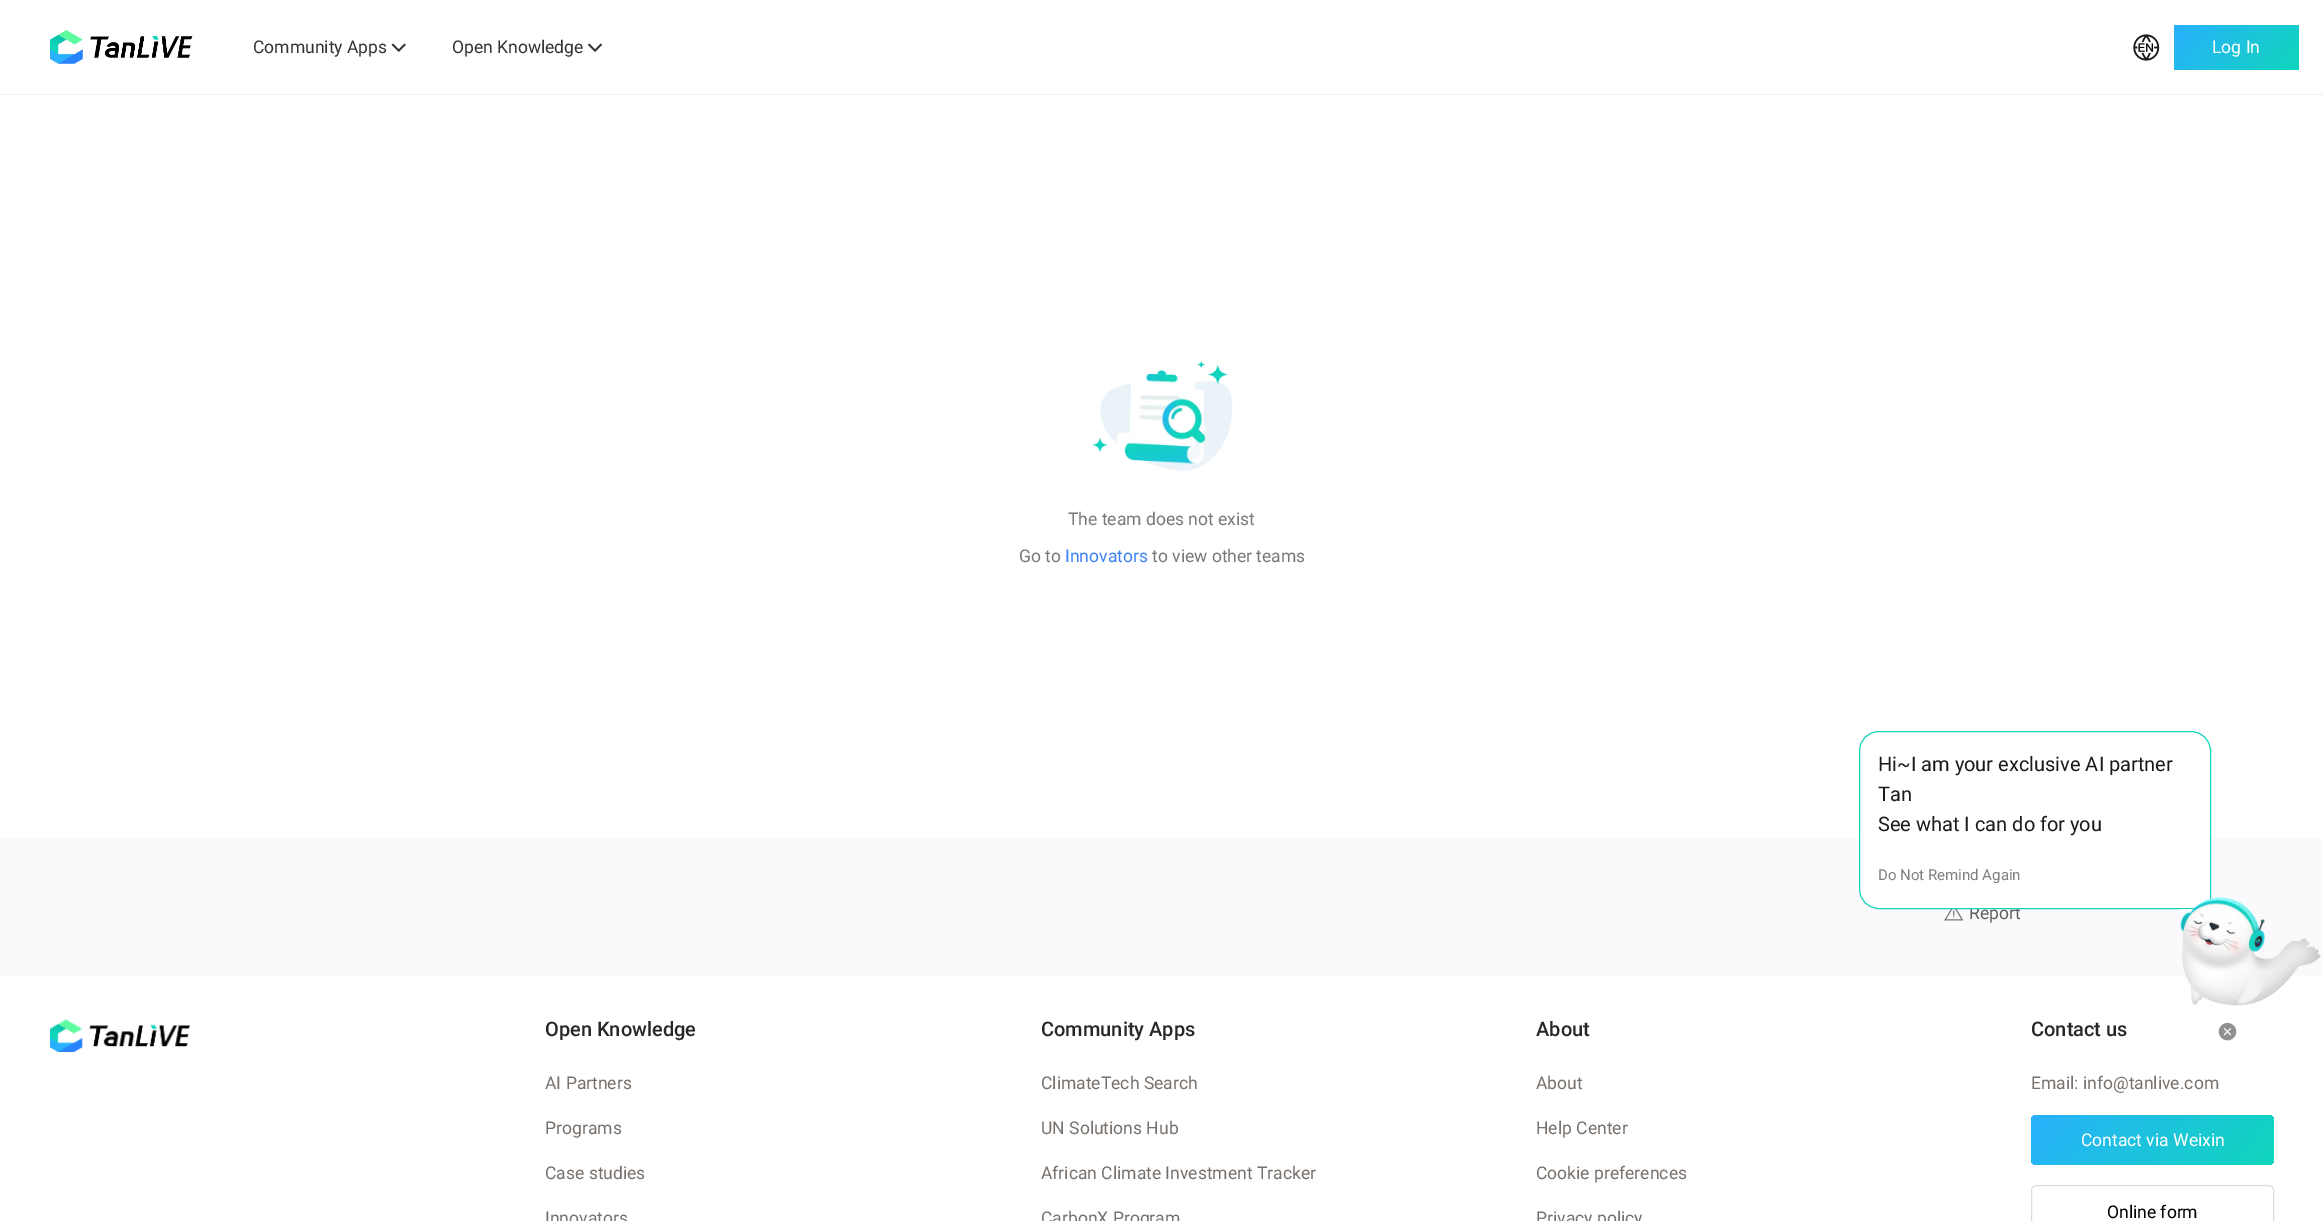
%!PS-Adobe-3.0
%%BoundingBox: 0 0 2323 1221
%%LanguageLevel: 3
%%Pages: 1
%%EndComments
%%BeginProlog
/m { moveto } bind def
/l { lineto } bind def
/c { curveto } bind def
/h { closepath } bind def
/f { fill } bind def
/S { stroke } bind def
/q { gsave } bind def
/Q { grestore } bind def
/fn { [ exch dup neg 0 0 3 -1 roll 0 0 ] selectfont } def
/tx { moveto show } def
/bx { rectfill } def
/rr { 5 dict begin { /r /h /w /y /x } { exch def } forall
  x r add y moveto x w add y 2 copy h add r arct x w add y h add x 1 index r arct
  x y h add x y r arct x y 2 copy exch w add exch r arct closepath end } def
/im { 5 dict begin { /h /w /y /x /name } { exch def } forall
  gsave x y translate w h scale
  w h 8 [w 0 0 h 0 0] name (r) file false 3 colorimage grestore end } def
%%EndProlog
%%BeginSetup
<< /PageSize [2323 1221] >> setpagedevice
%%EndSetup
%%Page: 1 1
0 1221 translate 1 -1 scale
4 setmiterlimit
1 setgray
0 0 2323 1221 bx
0.925 0.941 0.957 setrgbcolor
0 94 2323 1 bx
(image0.raw) 50 30 143 34 im
/Roboto-Regular 17.5 fn
0.2 setgray
(Community Apps) 253 53 tx
(image1.raw) 391 43 15 9 im
(Open Knowledge) 452 53 tx
(image2.raw) 587 43 16 9 im
(image3.raw) 2133 34 27 27 im
q 2174 25 125 45 2.5 rr clip newpath
<< /ShadingType 2 /ColorSpace /DeviceRGB /Coords [2286 86 2187 9] /Extend [true true] /Function << /FunctionType 2 /Domain [0 1] /C0 [0.063 0.839 0.737] /C1 [0.161 0.694 0.992] /N 1 >> >> shfill Q
1 setgray
(Log In) 2212 53 tx
(image4.raw) 1092 360 141 111 im
0.475 setgray
(The team does not exist) 1068 525 tx
(Go to) 1019 562 tx
0.231 0.51 0.965 setrgbcolor
(Innovators) 1065 562 tx
0.475 setgray
(to view other teams) 1152 562 tx
0.98 0.98 0.988 setrgbcolor
0 838 2323 138 bx
(image5.raw) 1944 909 20 12 im
0.376 setgray
(Report) 1969 919 tx
(image6.raw) 50 1019 140 33 im
/Roboto-Medium 20 fn
0.153 0.153 0.165 setrgbcolor
(Open Knowledge) 545 1036 tx
/Roboto-Regular 17.5 fn
0.471 0.443 0.424 setrgbcolor
(AI Partners) 545 1089 tx
(Programs) 545 1134 tx
(Case studies) 545 1179 tx
(Innovators) 545 1224 tx
/Roboto-Medium 20 fn
0.153 0.153 0.165 setrgbcolor
(Community Apps) 1041 1036 tx
/Roboto-Regular 17.5 fn
0.471 0.443 0.424 setrgbcolor
(ClimateTech Search) 1041 1089 tx
(UN Solutions Hub) 1041 1134 tx
(African Climate Investment Tracker) 1041 1179 tx
(CarbonX Program) 1041 1224 tx
/Roboto-Medium 20 fn
0.153 0.153 0.165 setrgbcolor
(About) 1536 1036 tx
/Roboto-Regular 17.5 fn
0.471 0.443 0.424 setrgbcolor
(About) 1536 1089 tx
(Help Center) 1536 1134 tx
(Cookie preferences) 1536 1179 tx
(Privacy policy) 1536 1224 tx
/Roboto-Medium 20 fn
0.153 0.153 0.165 setrgbcolor
(Contact us) 2031 1036 tx
/Roboto-Regular 17.5 fn
0.471 0.443 0.424 setrgbcolor
(Email: info@tanlive.com) 2031 1089 tx
q 2031 1115 243 50 5 rr clip newpath
<< /ShadingType 2 /ColorSpace /DeviceRGB /Coords [2240 1208 2065 1072] /Extend [true true] /Function << /FunctionType 2 /Domain [0 1] /C0 [0.063 0.839 0.737] /C1 [0.161 0.694 0.992] /N 1 >> >> shfill Q
1 setgray
(Contact via Weixin) 2081 1146 tx
0.843 0.871 0.89 setrgbcolor
2031.5 1185.5 242 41 4.5 rr S
0 setgray
(Online form) 2107 1218 tx
1 setgray
1879 731.5 m 2191 731.5 l 2202 731.5 2210.5 740 2210.5 751 c 2210.5 904 l 2210.5 906.5 2208.5 908.5 2206 908.5 c 1879 908.5 l 1868 908.5 1859.5 900 1859.5 889 c 1859.5 751 l 1859.5 740 1868 731.5 1879 731.5 c h q f Q
0.063 0.839 0.737 setrgbcolor
S
/Roboto-Regular 20 fn
0.102 setgray
(Hi~I am your exclusive AI partner) 1878 771 tx
(Tan) 1878 801 tx
(See what I can do for you) 1878 831 tx
/Roboto-Regular 15 fn
0.502 setgray
(Do Not Remind Again) 1878 880 tx
(image7.raw) 2180 897 141 109 im
(image8.raw) 2218 1022 19 19 im
showpage
%%EOF
